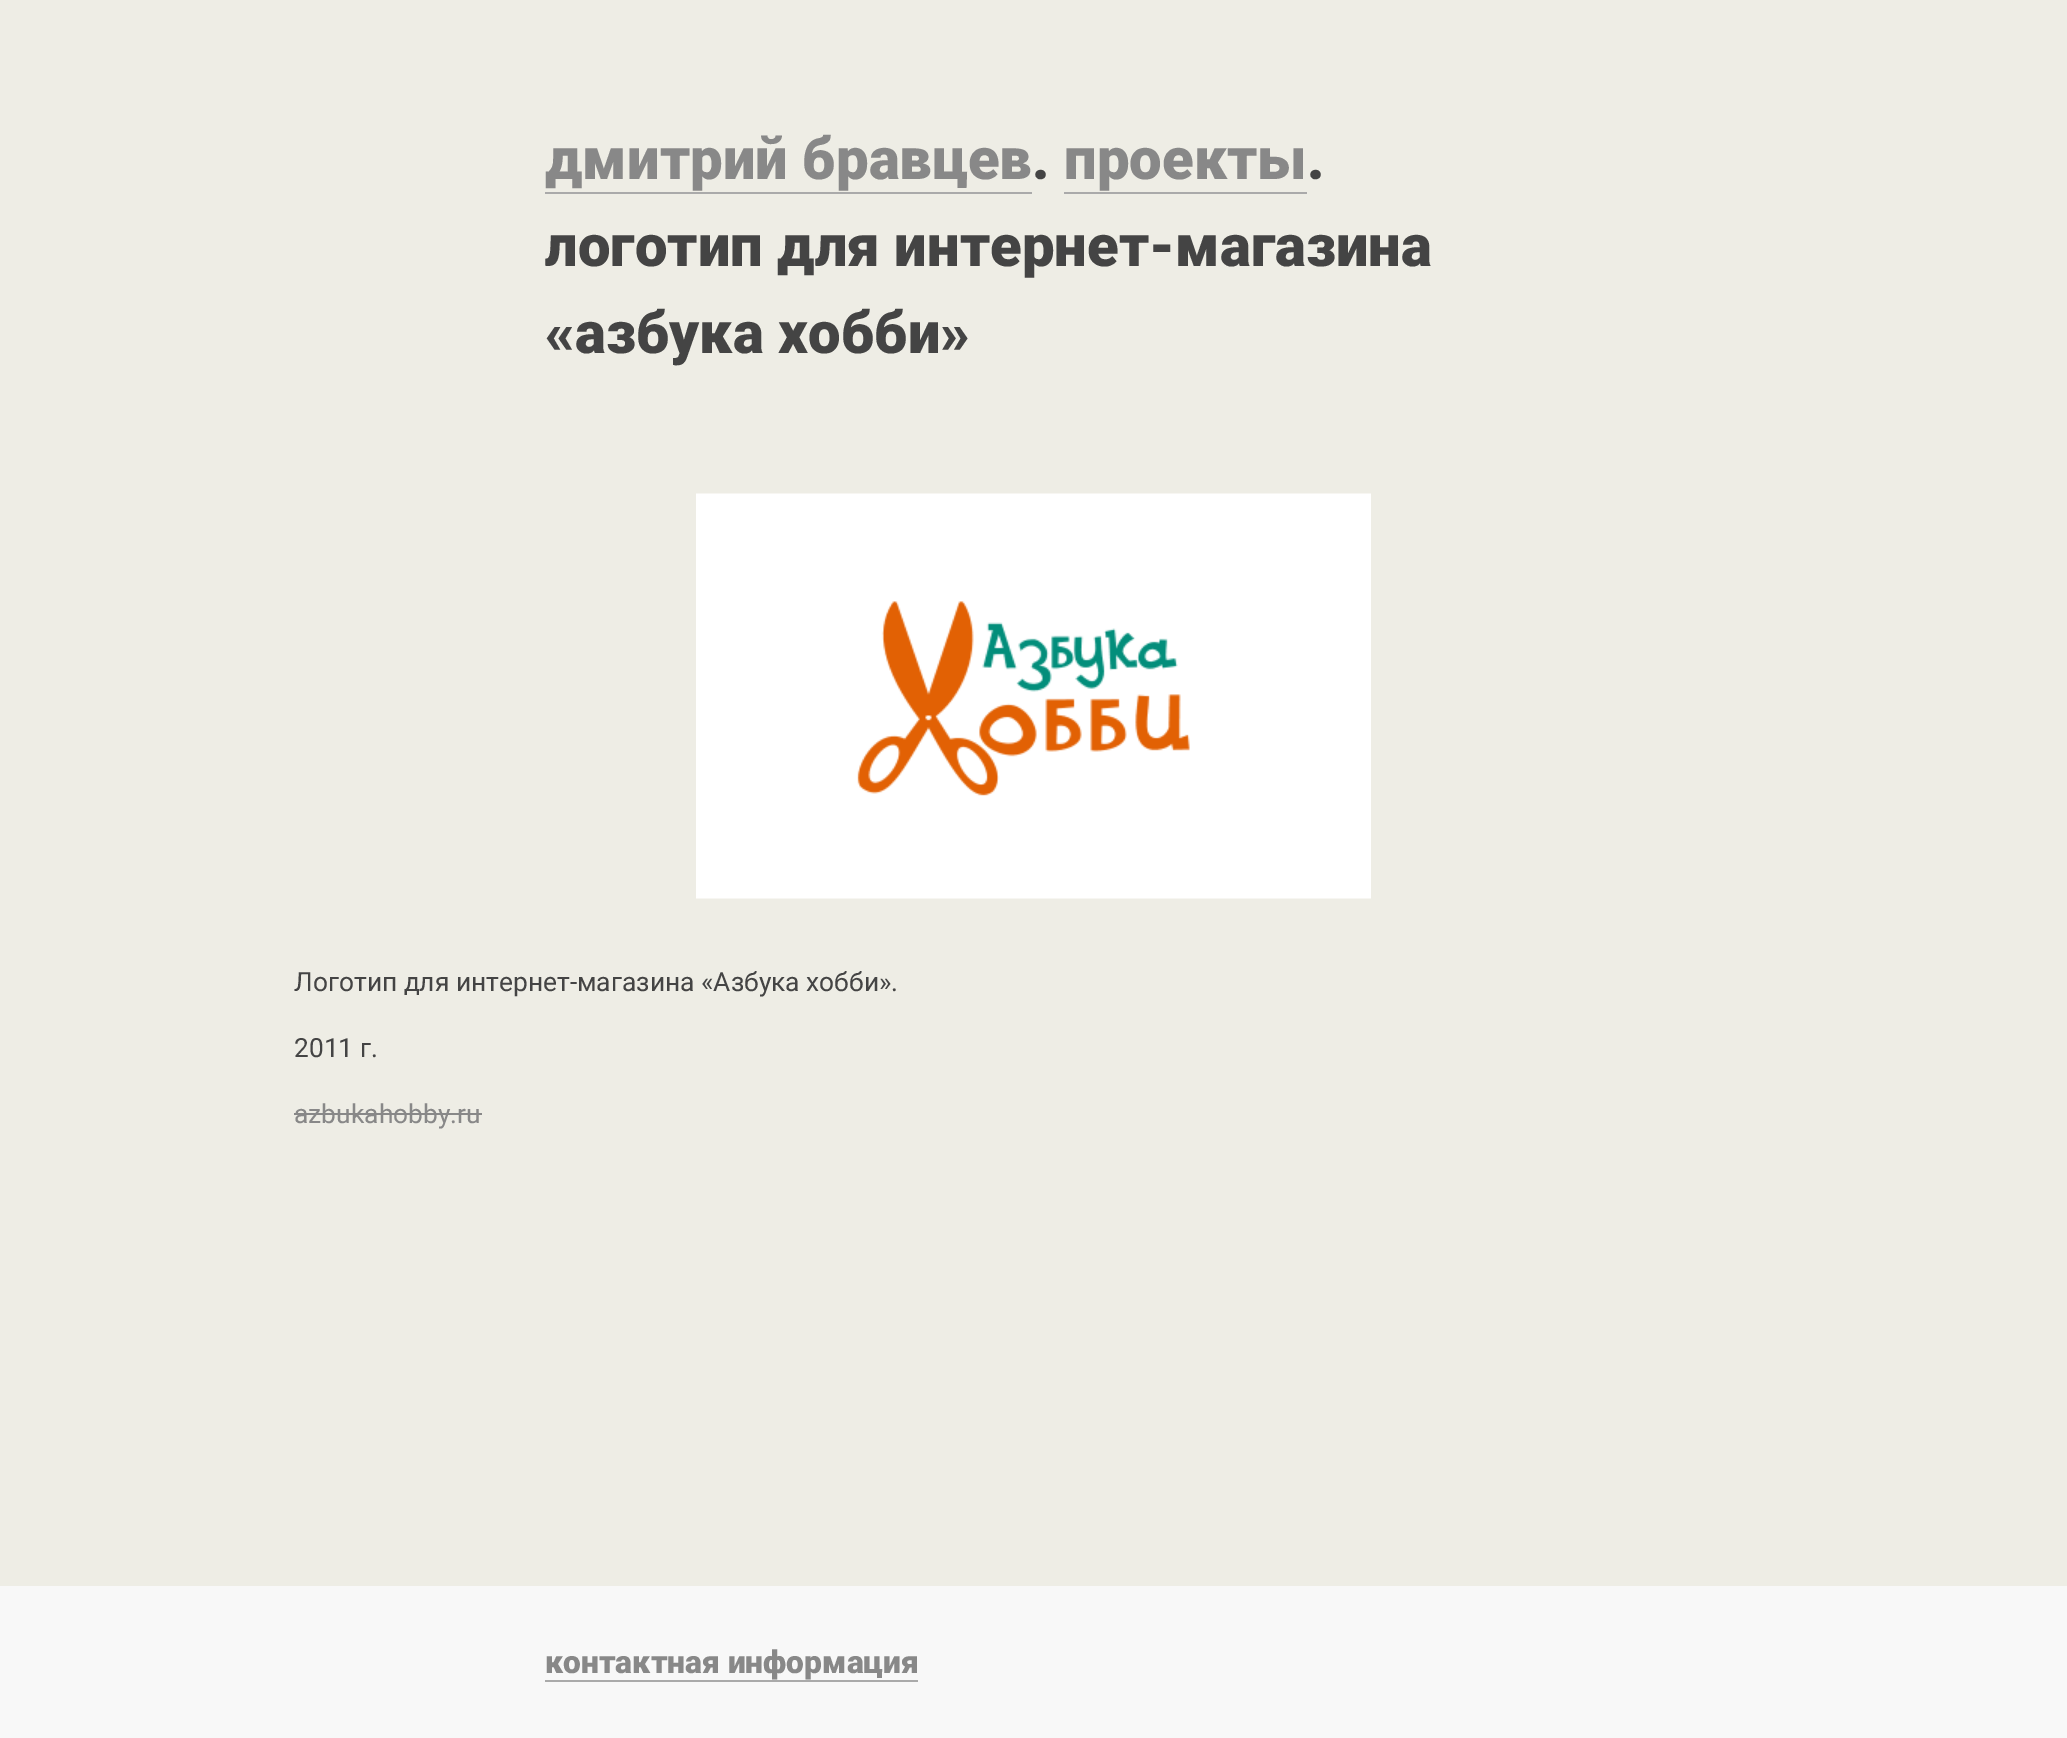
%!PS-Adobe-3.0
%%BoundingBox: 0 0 2067 1738
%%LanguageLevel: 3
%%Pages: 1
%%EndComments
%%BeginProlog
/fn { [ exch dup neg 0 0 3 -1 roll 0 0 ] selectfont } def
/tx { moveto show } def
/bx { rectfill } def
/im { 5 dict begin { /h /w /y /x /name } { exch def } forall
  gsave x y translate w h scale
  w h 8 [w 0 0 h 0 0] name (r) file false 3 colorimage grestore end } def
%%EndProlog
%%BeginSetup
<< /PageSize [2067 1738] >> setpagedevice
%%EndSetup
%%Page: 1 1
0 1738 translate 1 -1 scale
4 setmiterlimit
0.933 0.929 0.898 setrgbcolor
0 0 2067 1738 bx
/Roboto-Black 58.1 fn
0.533 setgray
(дмитрий бравцев) 545 179 tx
0.667 setgray
545 192 487 2 bx
0.267 setgray
(.) 1032 179 tx
0.533 setgray
(проекты) 1064 179 tx
0.667 setgray
1064 192 243 2 bx
0.267 setgray
(.) 1307 179 tx
(логотип для интернет-магазина) 545 266 tx
(«азбука хобби») 545 353 tx
(image0.raw) 696 493 675 406 im
/Roboto-Regular 26.4 fn
(Логотип для интернет-магазина «Азбука хобби».) 294 991 tx
(2011 г.) 294 1057 tx
0.533 setgray
(azbukahobby.ru) 294 1123 tx
294 1113 188 2 bx
0.973 setgray
0 1586 2067 152 bx
/Roboto-Black 31.75 fn
0.533 setgray
(контактная информация) 545 1673 tx
0.667 setgray
545 1680 373 2 bx
showpage
%%EOF
